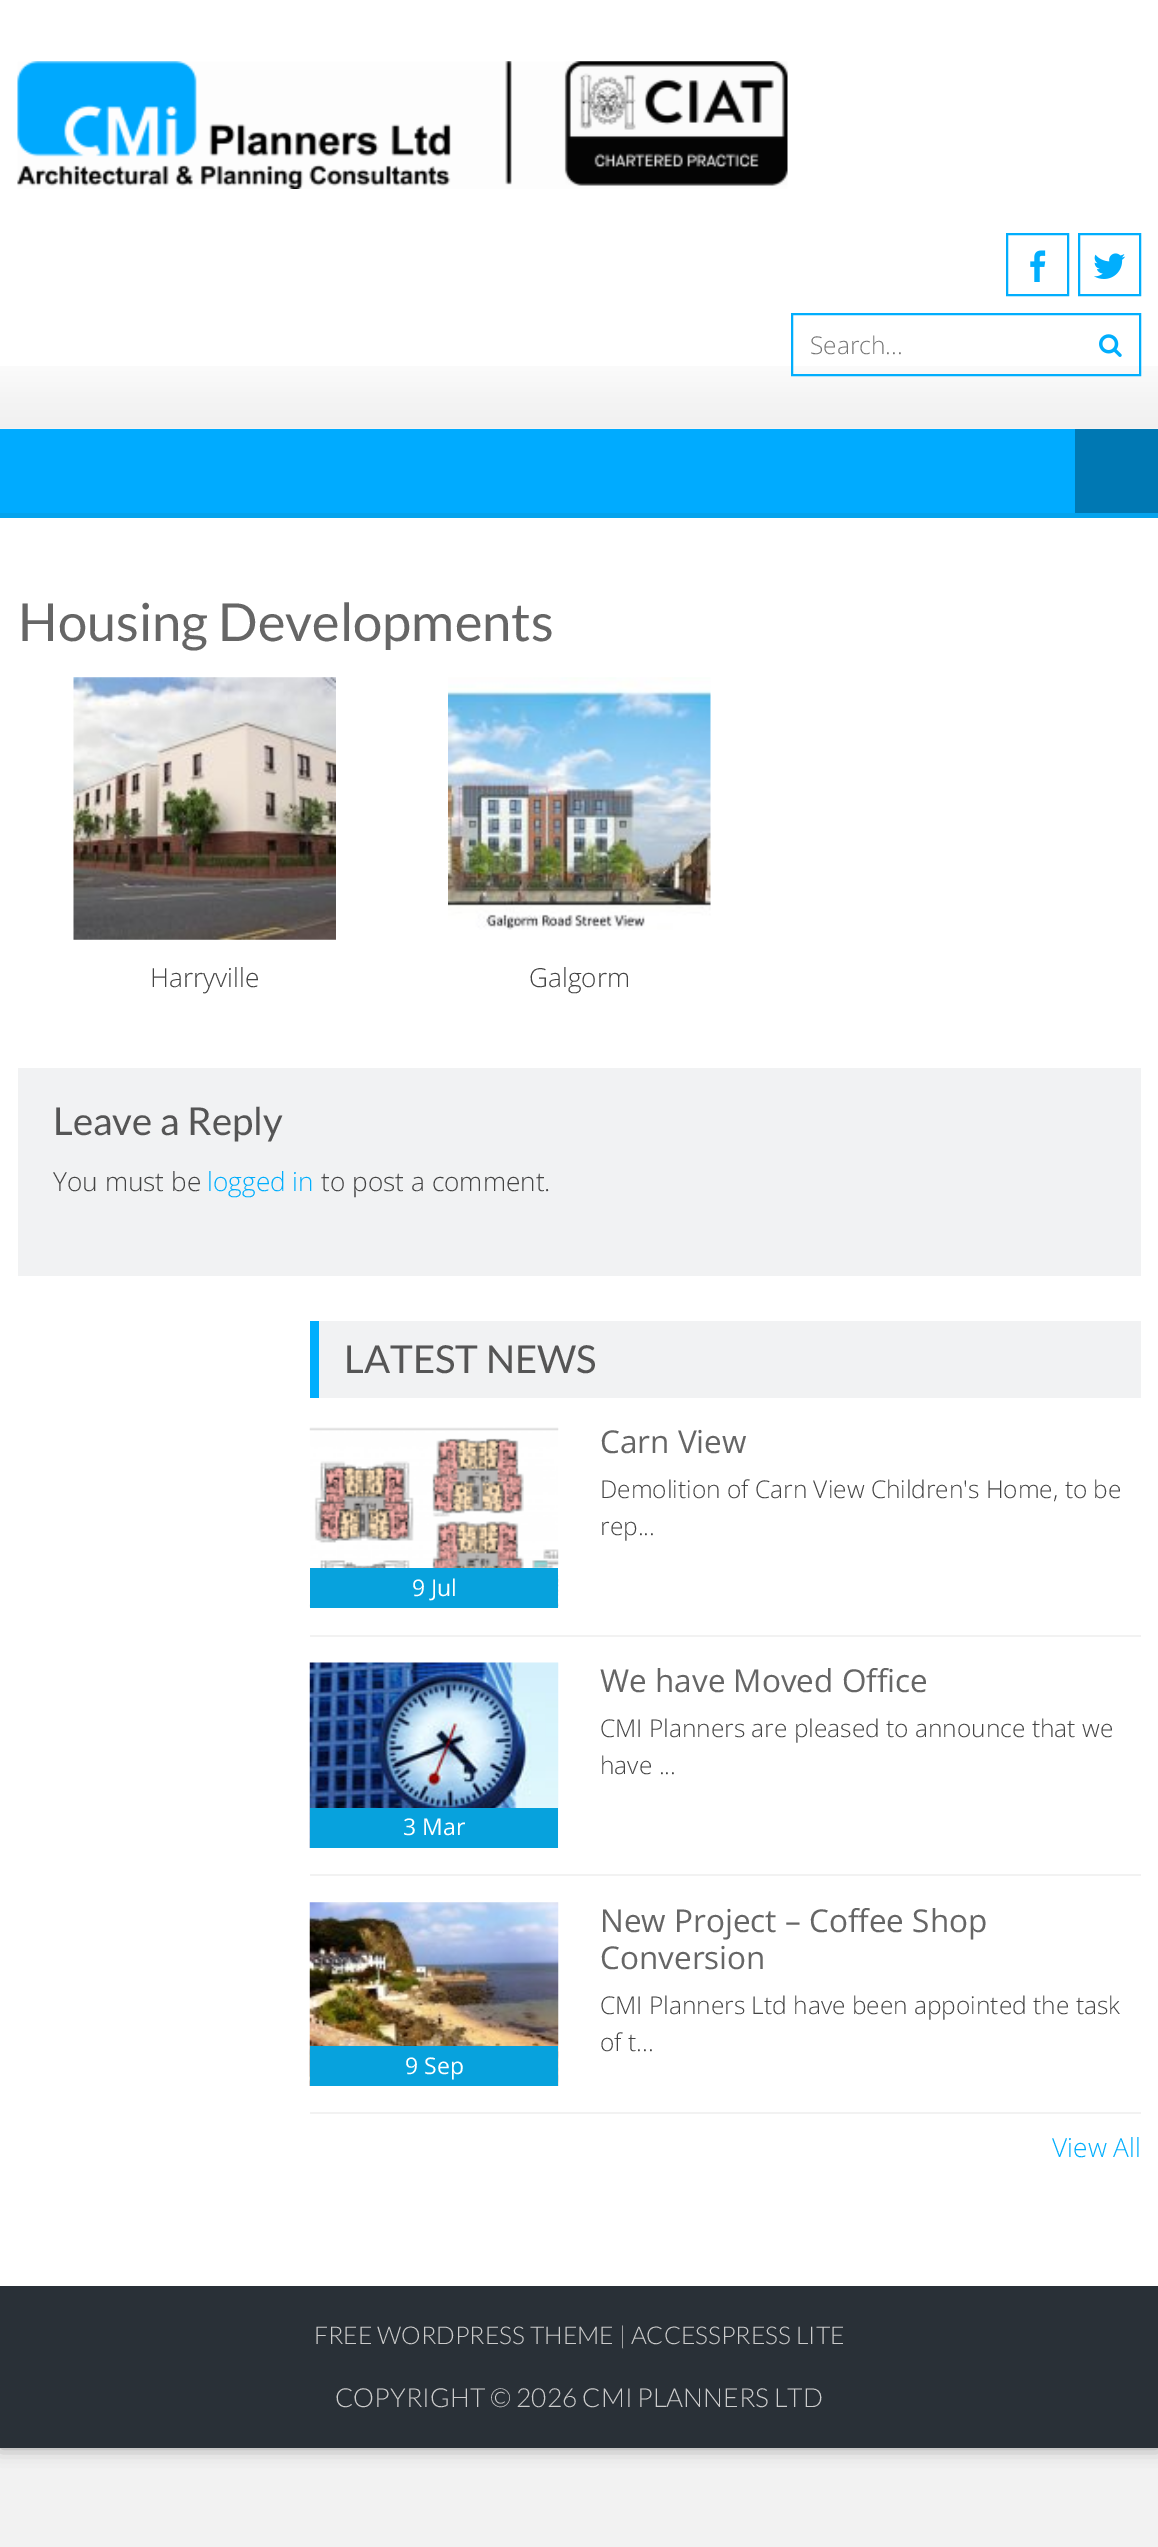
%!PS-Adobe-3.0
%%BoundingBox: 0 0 1158 2547
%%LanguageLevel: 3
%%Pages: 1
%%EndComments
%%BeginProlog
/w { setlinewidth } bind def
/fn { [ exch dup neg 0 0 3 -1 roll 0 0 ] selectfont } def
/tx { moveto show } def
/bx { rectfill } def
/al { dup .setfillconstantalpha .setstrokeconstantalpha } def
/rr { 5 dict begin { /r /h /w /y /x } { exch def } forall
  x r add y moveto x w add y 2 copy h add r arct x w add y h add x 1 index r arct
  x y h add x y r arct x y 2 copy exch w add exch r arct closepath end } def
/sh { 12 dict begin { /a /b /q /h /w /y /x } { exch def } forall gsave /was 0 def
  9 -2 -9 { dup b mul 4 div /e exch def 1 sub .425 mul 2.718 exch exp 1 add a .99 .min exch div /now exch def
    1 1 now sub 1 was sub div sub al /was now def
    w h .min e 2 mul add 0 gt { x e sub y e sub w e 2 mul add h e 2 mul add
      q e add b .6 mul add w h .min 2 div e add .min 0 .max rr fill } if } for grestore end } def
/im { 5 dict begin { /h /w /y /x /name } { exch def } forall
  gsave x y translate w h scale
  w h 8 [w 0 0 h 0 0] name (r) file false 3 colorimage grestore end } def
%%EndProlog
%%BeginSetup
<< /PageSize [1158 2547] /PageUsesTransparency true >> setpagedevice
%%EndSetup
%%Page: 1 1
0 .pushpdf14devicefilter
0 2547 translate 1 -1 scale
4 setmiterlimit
0.949 setgray
0 0 1158 2547 bx
0.6 setgray
0 0 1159 2448 0 9 1 sh
1 setgray
0 0 1158 2286 bx
(image0.raw) 0 366 1158 63 im
(image1.raw) 17 61 771 128 im
0.004 0.682 0.992 setrgbcolor
2 w
1007 234 61 61 rectstroke
(image2.raw) 1030 250 16 32 im
1079 234 61 61 rectstroke
(image3.raw) 1094 253 32 26 im
792 314 348 61 rectstroke
/OpenSans-Light 24.5 fn
0.459 setgray
(Search...) 810 354 tx
(image4.raw) 1099 334 23 23 im
0 0.671 1 setrgbcolor
0 429 1075 84 bx
0.016 0.639 0.929 setrgbcolor
0 513 1158 5 bx
0 0.471 0.702 setrgbcolor
1075 429 83 84 bx
/Lato-Regular 52.5 fn
0.4 setgray
(Housing Developments) 18 641 tx
(image5.raw) 73 677 263 263 im
/OpenSans-Light 26.25 fn
0.267 setgray
(Harryville) 150 987 tx
(image6.raw) 448 677 263 253 im
(Galgorm) 529 987 tx
0.945 0.949 0.953 setrgbcolor
18 1068 1123 208 bx
/Lato-Regular 38.5 fn
0.333 setgray
(Leave a Reply) 53 1135 tx
/OpenSans-Light 26.25 fn
0.267 setgray
(You must be) 53 1191 tx
0.004 0.682 0.992 setrgbcolor
(logged in) 207 1191 tx
0.267 setgray
(to post a comment.) 321 1191 tx
0.945 0.949 0.953 setrgbcolor
319 1321 822 77 bx
0.004 0.682 0.992 setrgbcolor
310 1321 9 77 bx
/Lato-Regular 38.5 fn
0.333 setgray
(LATEST NEWS) 344 1373 tx
0.949 setgray
310 1635 831 2 bx
/OpenSans-Regular 31.5 fn
0.4 setgray
(Carn View) 600 1453 tx
/OpenSans-Light 24.5 fn
0.267 setgray
(Demolition of Carn View Children's Home, to be) 600 1498 tx
(rep...) 600 1535 tx
(image7.raw) 309 1427 250 180 im
0.027 0.635 0.867 setrgbcolor
310 1568 248 40 bx
/OpenSans-Regular 23 fn
1 setgray
(9 Jul) 412 1596 tx
0.949 setgray
310 1874 831 2 bx
/OpenSans-Regular 31.5 fn
0.4 setgray
(We have Moved Office) 600 1692 tx
/OpenSans-Light 24.5 fn
0.267 setgray
(CMI Planners are pleased to announce that we) 600 1737 tx
(have ...) 600 1774 tx
(image8.raw) 309 1662 250 186 im
0.027 0.635 0.867 setrgbcolor
310 1808 248 40 bx
/OpenSans-Regular 23 fn
1 setgray
(3 Mar) 403 1835 tx
0.949 setgray
310 2112 831 2 bx
/OpenSans-Regular 31.5 fn
0.4 setgray
(New Project – Coffee Shop) 600 1932 tx
(Conversion) 600 1969 tx
/OpenSans-Light 24.5 fn
0.267 setgray
(CMI Planners Ltd have been appointed the task) 600 2014 tx
(of t...) 600 2051 tx
(image9.raw) 309 1902 250 184 im
0.027 0.635 0.867 setrgbcolor
310 2046 248 40 bx
/OpenSans-Regular 23 fn
1 setgray
(9 Sep) 405 2074 tx
/OpenSans-Light 26.25 fn
0.004 0.682 0.992 setrgbcolor
(View All) 1052 2157 tx
0.161 0.188 0.216 setrgbcolor
0 2286 1158 162 bx
/Lato-Light 24.5 fn
0.8 setgray
(FREE WORDPRESS THEME | ACCESSPRESS LITE) 314 2344 tx
/Lato-Light 26.25 fn
(COPYRIGHT © 2026 CMI PLANNERS LTD) 335 2407 tx
.poppdf14devicefilter showpage
%%EOF
